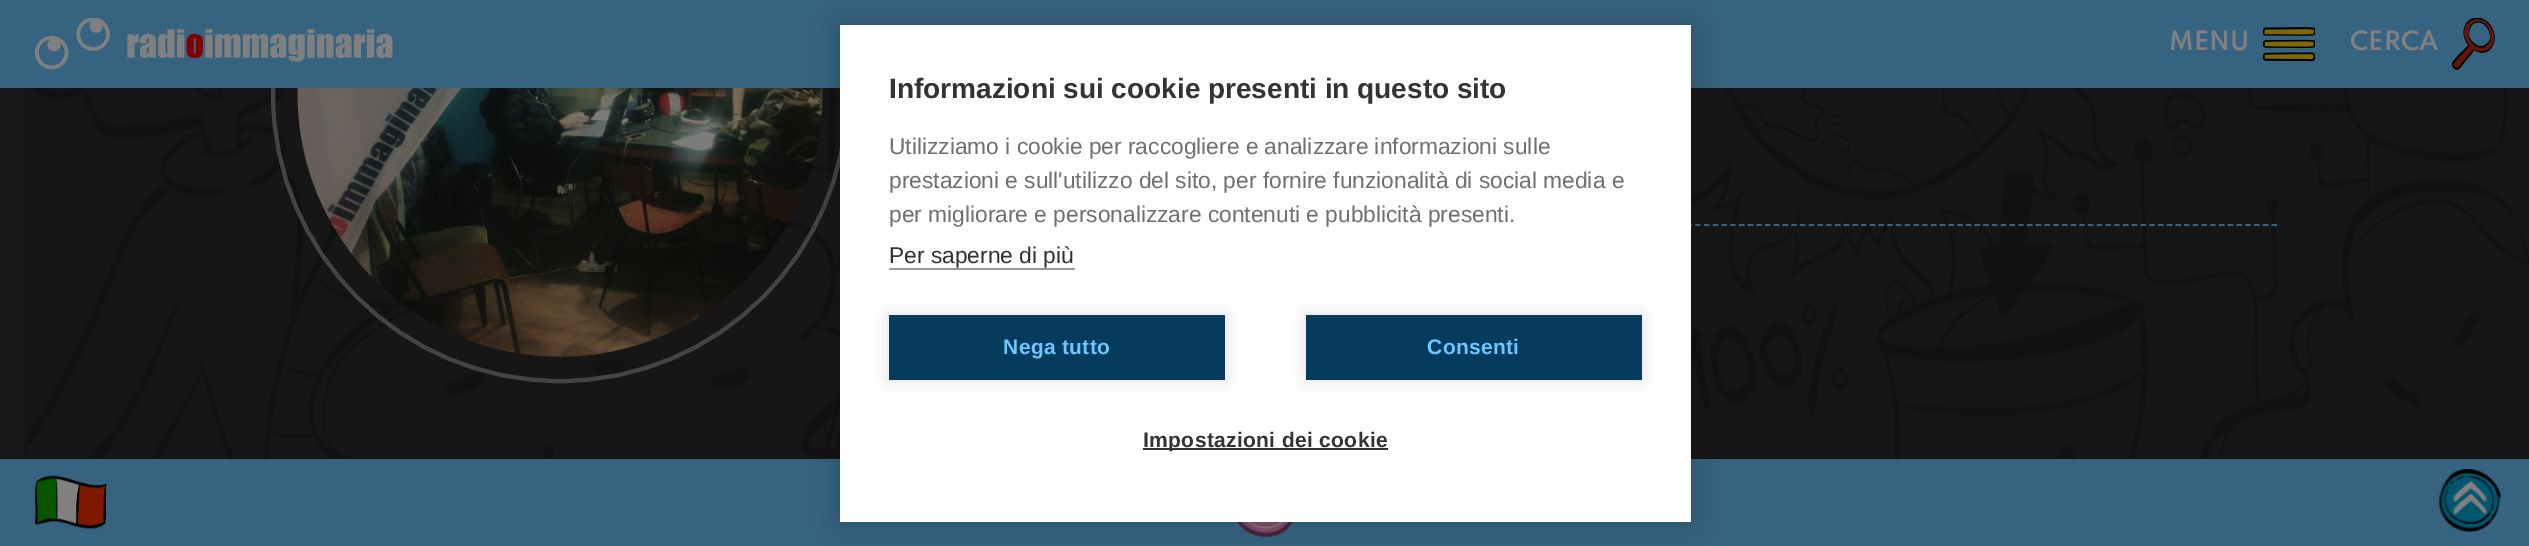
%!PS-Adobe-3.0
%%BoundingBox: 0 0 2529 546
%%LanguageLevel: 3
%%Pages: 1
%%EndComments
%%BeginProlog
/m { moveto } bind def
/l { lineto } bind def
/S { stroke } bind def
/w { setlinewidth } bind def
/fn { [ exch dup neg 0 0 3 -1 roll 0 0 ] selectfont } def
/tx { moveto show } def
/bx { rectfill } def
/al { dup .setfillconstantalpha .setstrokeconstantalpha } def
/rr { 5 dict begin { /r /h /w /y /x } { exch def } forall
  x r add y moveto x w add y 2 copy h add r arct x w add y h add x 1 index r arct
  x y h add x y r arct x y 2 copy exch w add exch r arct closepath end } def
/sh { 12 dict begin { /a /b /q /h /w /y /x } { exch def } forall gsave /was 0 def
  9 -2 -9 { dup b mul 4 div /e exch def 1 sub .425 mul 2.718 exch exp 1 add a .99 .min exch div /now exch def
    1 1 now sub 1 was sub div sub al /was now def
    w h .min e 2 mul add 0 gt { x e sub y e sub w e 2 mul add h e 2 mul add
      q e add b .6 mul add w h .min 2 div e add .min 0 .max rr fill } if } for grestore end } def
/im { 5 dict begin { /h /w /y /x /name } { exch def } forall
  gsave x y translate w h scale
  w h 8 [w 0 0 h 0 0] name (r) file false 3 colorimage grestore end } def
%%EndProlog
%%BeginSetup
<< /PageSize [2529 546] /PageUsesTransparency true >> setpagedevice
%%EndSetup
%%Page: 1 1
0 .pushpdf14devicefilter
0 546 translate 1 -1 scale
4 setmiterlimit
0.09 setgray
0 0 2529 546 bx
(image0.raw) 22 88 2507 371 im
(image1.raw) 297 88 526 269 im
0.267 setgray
4 w
273 -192 574 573 286.5 rr S
0.212 0.392 0.502 setrgbcolor
1.8 w
[5.25 3.48] 0 setdash
901 225 m 2277 225 l S
0 0 2529 88 bx
(image2.raw) 35 18 358 52 im
(image3.raw) 2263 27 52 35 im
/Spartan-SemiBold 23.5 fn
0.502 setgray
(MENU) 2169 50 tx
(image4.raw) 2452 18 43 52 im
(CERCA) 2350 50 tx
0.212 0.392 0.502 setrgbcolor
0 459 2529 87 bx
(image6.raw) 1237 522 56 15 im
0 setgray
840 25 851 497 0 17.5 0.2 sh
1 setgray
840 25 851 497 bx
/LiberationSans-Bold 28 fn
0.2 setgray
(Informazioni sui cookie presenti in questo sito) 889 98 tx
/LiberationSans-Regular 22.75 fn
0.439 setgray
(Utilizziamo i cookie per raccogliere e analizzare informazioni sulle) 889 154 tx
(prestazioni e sull'utilizzo del sito, per fornire funzionalità di social media e) 889 188 tx
(per migliorare e personalizzare contenuti e pubblicità presenti.) 889 222 tx
0.2 setgray
(Per saperne di più) 889 263 tx
0.6 setgray
889 268 186 2 bx
0 setgray
889 315 336 65 0 9 0.12 sh
0.02 0.235 0.369 setrgbcolor
889 315 336 65 bx
/LiberationSans-Bold 21 fn
0.424 0.78 1 setrgbcolor
1003 354 m 0.35 0 (Nega tutto) ashow
0 setgray
1306 315 336 65 0 9 0.12 sh
0.02 0.235 0.369 setrgbcolor
1306 315 336 65 bx
0.424 0.78 1 setrgbcolor
1427 354 m 0.35 0 (Consenti) ashow
0.2 setgray
1143 448 245 2 bx
1143 447 m 0.35 0 (Impostazioni dei cookie) ashow
(image5.raw) 35 475 72 55 im
(image7.raw) 2438 469 63 63 im
.poppdf14devicefilter showpage
%%EOF
